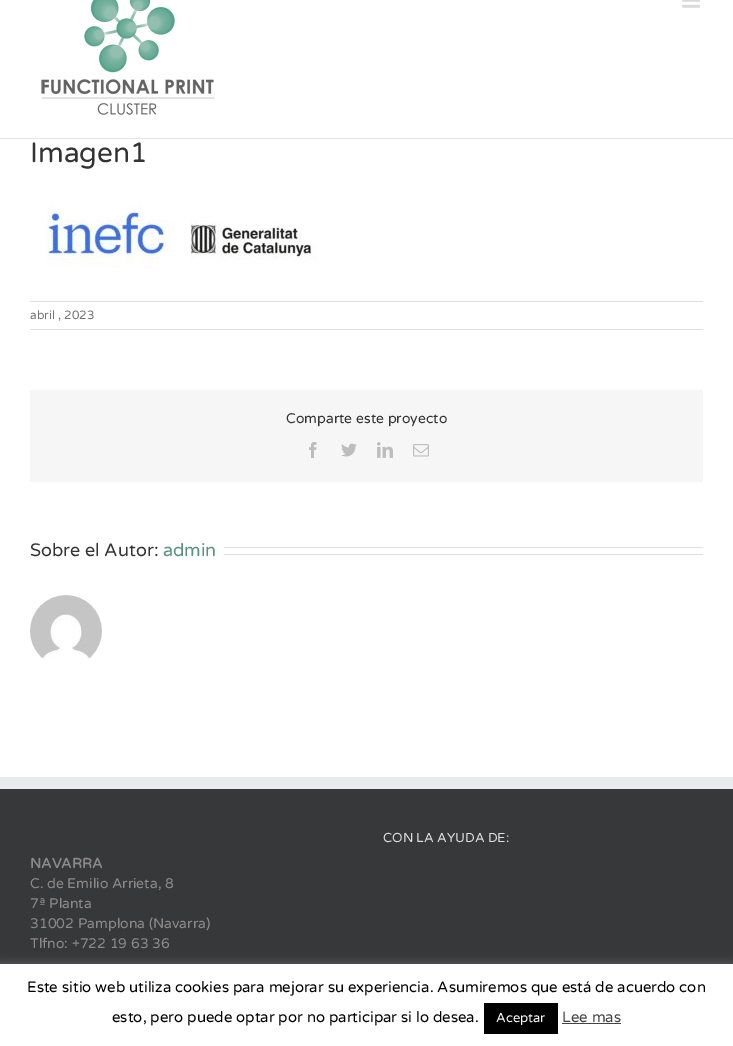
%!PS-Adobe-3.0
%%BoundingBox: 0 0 733 1046
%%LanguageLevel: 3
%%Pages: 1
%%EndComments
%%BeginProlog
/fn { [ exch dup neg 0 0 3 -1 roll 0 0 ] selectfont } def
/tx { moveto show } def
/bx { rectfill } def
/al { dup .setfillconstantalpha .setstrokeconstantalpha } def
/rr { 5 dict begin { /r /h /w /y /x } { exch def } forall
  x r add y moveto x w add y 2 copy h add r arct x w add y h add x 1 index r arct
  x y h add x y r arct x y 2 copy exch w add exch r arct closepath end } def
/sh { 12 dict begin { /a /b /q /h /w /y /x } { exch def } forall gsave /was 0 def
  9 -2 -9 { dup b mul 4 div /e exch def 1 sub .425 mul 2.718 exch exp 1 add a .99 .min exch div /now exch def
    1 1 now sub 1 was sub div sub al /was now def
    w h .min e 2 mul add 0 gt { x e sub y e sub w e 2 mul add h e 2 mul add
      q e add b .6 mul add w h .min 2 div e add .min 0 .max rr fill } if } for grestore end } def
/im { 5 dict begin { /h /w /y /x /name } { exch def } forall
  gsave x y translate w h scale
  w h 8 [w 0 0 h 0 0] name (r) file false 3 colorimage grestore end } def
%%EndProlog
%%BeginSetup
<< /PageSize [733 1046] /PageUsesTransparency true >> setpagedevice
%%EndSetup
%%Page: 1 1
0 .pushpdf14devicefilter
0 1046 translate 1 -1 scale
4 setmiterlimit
1 setgray
0 0 733 1046 bx
0.898 setgray
0 138 733 1 bx
(image0.raw) 41 0 174 115 im
(image1.raw) 682 0 18 8 im
/VarelaRound-Regular 28 fn
0.2 setgray
(Imagen1) 30 162 tx
(image2.raw) 46 204 271 64 im
0.878 0.871 0.871 setrgbcolor
30 301 673 1 bx
30 329 673 1 bx
/VarelaRound-Regular 12 fn
0.455 setgray
(abril , 2023) 30 319 tx
0.965 setgray
30 390 673 92 bx
/VarelaRound-Regular 14 fn
0.2 setgray
(Comparte este proyecto) 286 423 tx
(image3.raw) 309 442 8 16 im
(image4.raw) 341 443 16 14 im
(image5.raw) 377 442 16 16 im
(image6.raw) 413 444 16 13 im
/VarelaRound-Regular 18 fn
(Sobre el Autor:) 30 556 tx
0.349 0.569 0.51 setrgbcolor
(admin) 163 556 tx
0.878 0.871 0.871 setrgbcolor
224 547 479 1 bx
224 554 479 1 bx
(image7.raw) 30 595 72 64 im
0.212 0.22 0.224 setrgbcolor
0 789 733 175 bx
0.914 0.918 0.933 setrgbcolor
0 777 733 12 bx
/VarelaRound-Regular 13 fn
0.867 setgray
(CON LA AYUDA DE:) 383 842 tx
/VarelaRound-Bold 14 fn
0.549 0.537 0.537 setrgbcolor
(NAVARRA) 30 868 tx
/VarelaRound-Regular 14 fn
(C. de Emilio Arrieta, 8) 30 888 tx
(7ª Planta) 30 908 tx
(31002 Pamplona \(Navarra\)) 30 928 tx
(Tlfno: +722 19 63 36) 30 948 tx
0.675 0.671 0.671 setrgbcolor
0 963 733 82 0 5 0.3 sh
1 setgray
0 964 733 82 bx
/VarelaRound-Regular 15 fn
0 setgray
(Este sitio web utiliza cookies para mejorar su experiencia. Asumiremos que está de acuerdo con) 27 992 tx
(esto, pero puede optar por no participar si lo desea.) 112 1022 tx
484 1003 74 31 bx
/VarelaRound-Regular 13 fn
1 setgray
(Aceptar) 496 1022 tx
/VarelaRound-Regular 15 fn
0.267 setgray
(Lee mas) 562 1022 tx
562 1023 59 1 bx
.poppdf14devicefilter showpage
%%EOF
